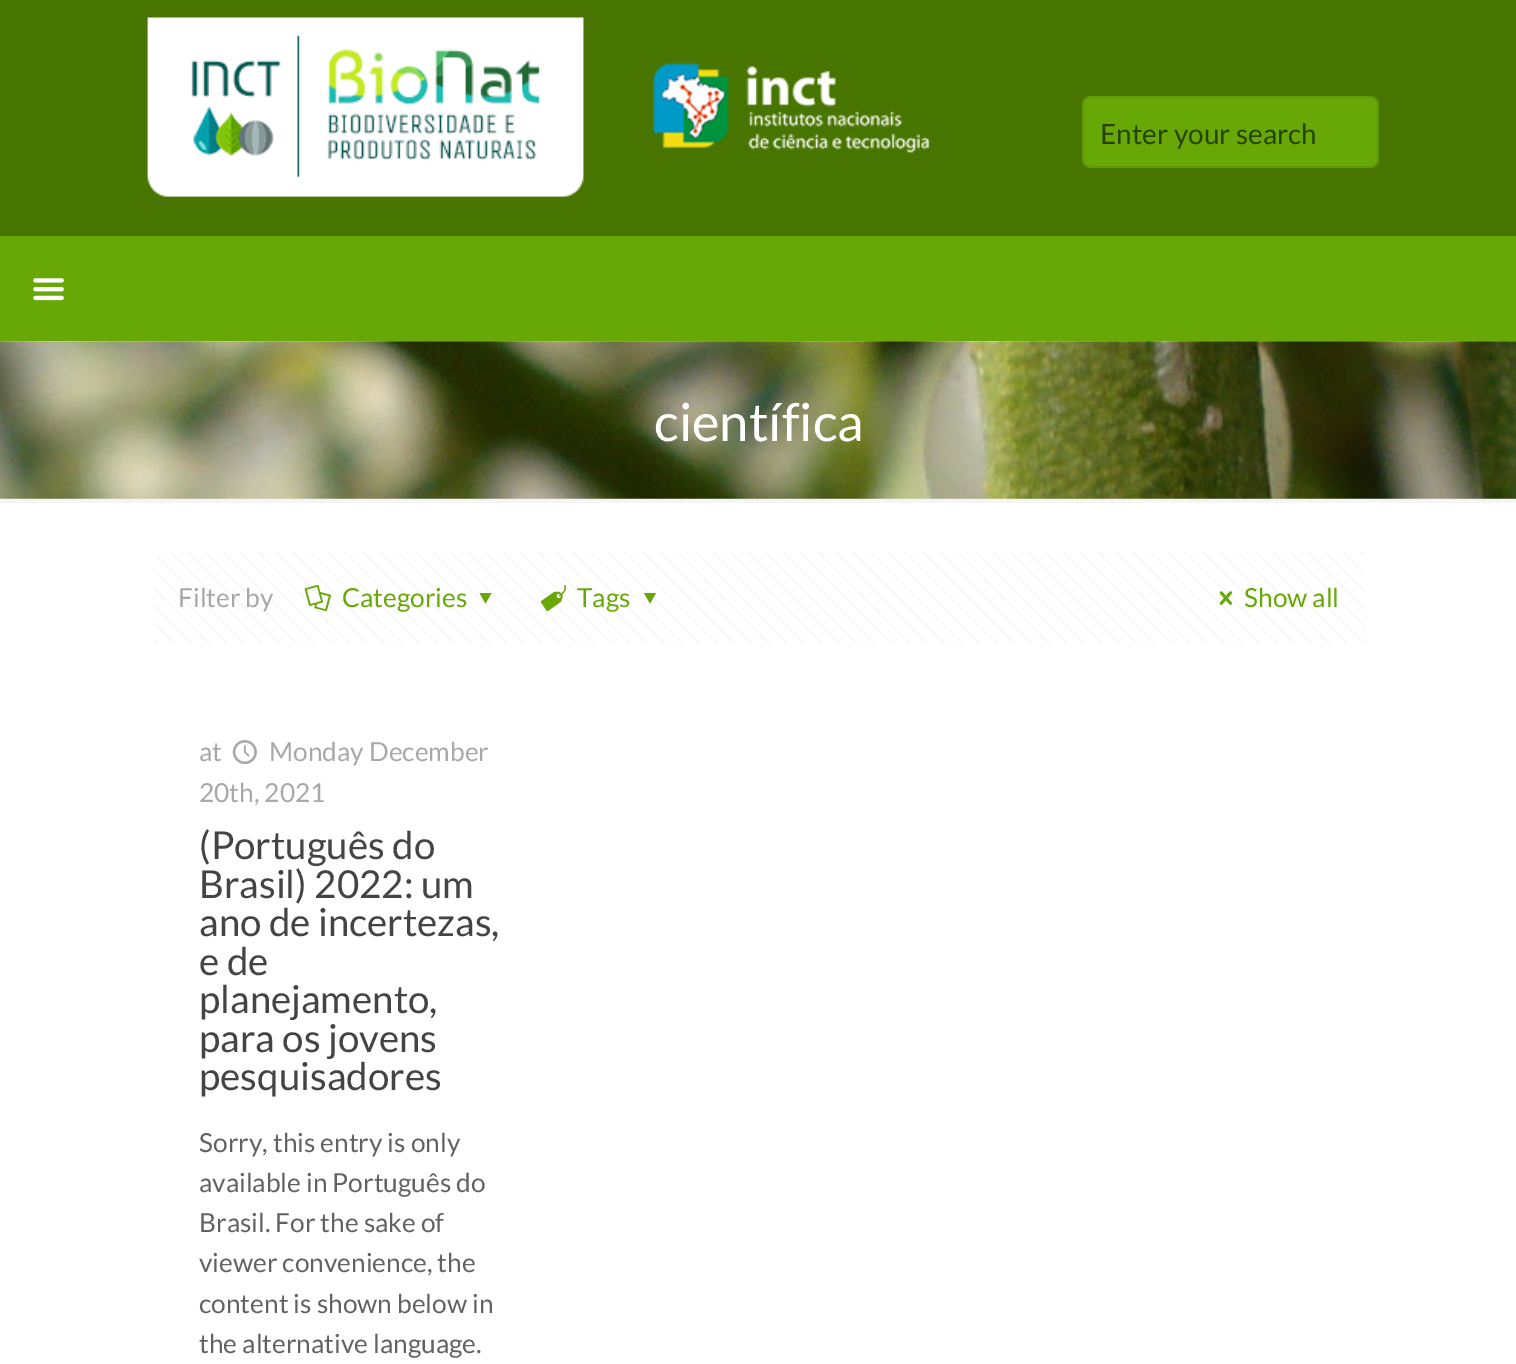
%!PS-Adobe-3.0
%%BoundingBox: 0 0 1516 1364
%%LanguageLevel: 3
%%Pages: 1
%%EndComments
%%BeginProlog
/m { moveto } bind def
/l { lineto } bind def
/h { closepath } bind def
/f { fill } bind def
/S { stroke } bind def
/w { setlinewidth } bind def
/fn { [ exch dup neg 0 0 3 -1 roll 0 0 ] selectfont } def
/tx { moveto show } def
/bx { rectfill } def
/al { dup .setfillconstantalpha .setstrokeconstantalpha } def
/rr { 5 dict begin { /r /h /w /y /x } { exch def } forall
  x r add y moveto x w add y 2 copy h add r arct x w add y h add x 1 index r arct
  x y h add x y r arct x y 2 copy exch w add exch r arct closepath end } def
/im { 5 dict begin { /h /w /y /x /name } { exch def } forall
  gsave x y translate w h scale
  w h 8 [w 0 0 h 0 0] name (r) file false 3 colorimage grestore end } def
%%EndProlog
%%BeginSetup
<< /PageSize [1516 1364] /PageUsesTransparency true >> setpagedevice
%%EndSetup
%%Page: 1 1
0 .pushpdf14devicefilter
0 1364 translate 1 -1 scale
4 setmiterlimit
1 setgray
0 0 1516 1364 bx
0.278 0.459 0 setrgbcolor
0 0 1516 236 bx
(image0.raw) 147 17 783 180 im
0.404 0.655 0.024 setrgbcolor
1082 96 297 72 9 rr f
0.08 al
0 setgray
2 w
1083 97 295 70 8 rr S
/Lato-Regular 28 fn
1 al
0.157 0.259 0 setrgbcolor
(Enter your search) 1100 144 tx
0.404 0.655 0.024 setrgbcolor
0 236 1516 105 bx
(image1.raw) 33 278 31 23 im
(image2.raw) 0 341 1516 158 im
/Lato-Regular 52.5 fn
1 setgray
(científica) 654 441 tx
0.961 setgray
0 499 1516 4 bx
(image3.raw) 153 552 1212 92 im
/Lato-Regular 26.25 fn
0.659 setgray
(Filter by) 178 607 tx
(image4.raw) 304 584 27 28 im
0.404 0.655 0.024 setrgbcolor
(Categories) 342 607 tx
491.5 593 m 485.5 603.5 l 479.5 593 l h f
(image5.raw) 540 584 26 28 im
(Tags) 577 607 tx
656 593 m 650 603.5 l 644 593 l h f
(image6.raw) 1219 591 14 14 im
(Show all) 1244 607 tx
0.659 setgray
(at) 199 761 tx
(image7.raw) 232 740 25 25 im
(Monday December) 269 761 tx
(20th, 2021) 199 802 tx
/Lato-Regular 38.5 fn
0.267 setgray
(\(Português do) 199 859 tx
(Brasil\) 2022: um) 199 898 tx
(ano de incertezas,) 199 936 tx
(e de) 199 975 tx
(planejamento,) 199 1013 tx
(para os jovens) 199 1052 tx
(pesquisadores) 199 1090 tx
/Lato-Regular 26.25 fn
0.384 setgray
(Sorry, this entry is only) 199 1152 tx
(available in Português do) 199 1192 tx
(Brasil. For the sake of) 199 1232 tx
(viewer convenience, the) 199 1272 tx
(content is shown below in) 199 1313 tx
(the alternative language.) 199 1353 tx
.poppdf14devicefilter showpage
%%EOF
